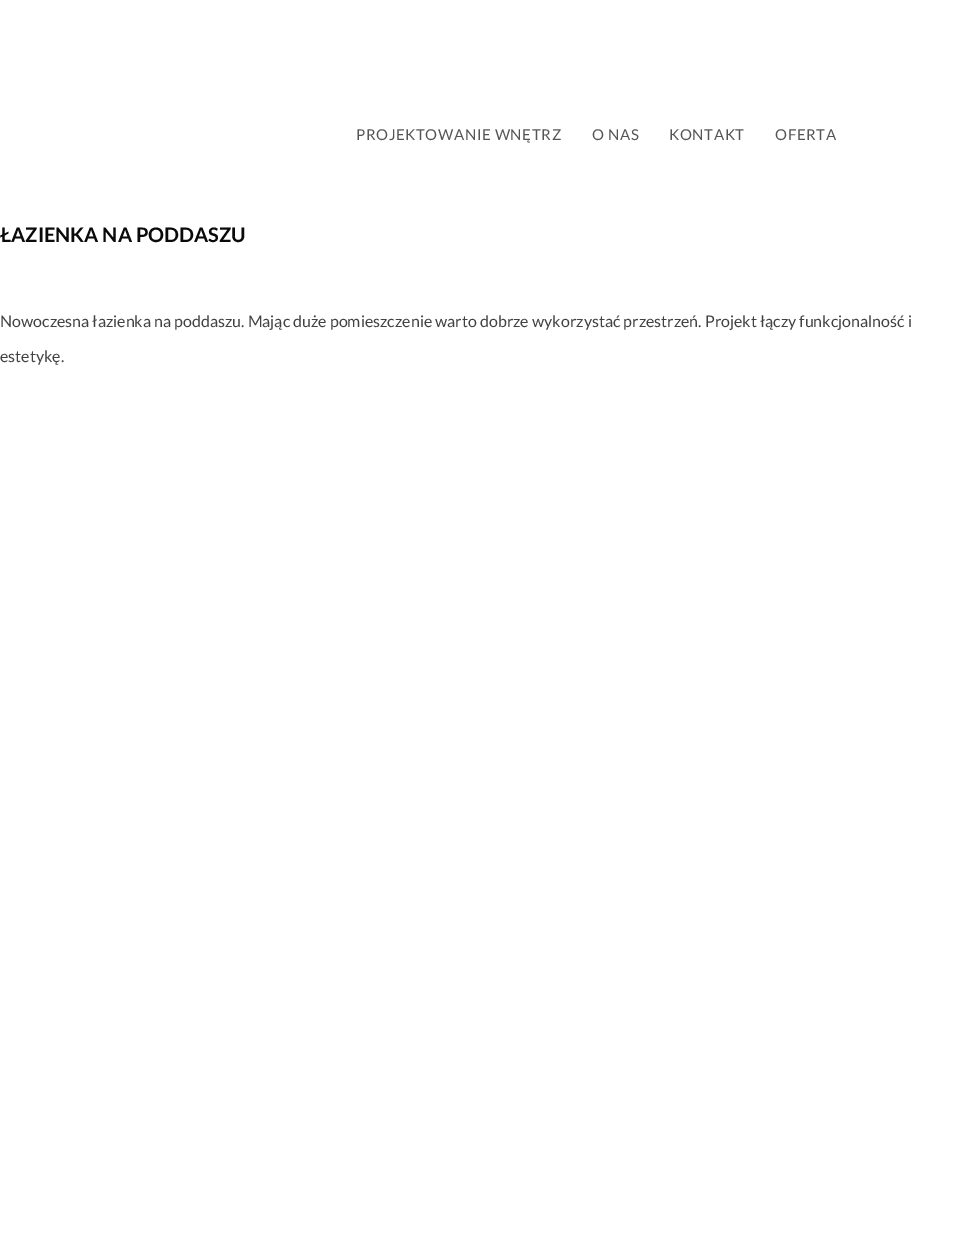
%!PS-Adobe-3.0
%%BoundingBox: 0 0 968 1235
%%LanguageLevel: 3
%%Pages: 1
%%EndComments
%%BeginProlog
/m { moveto } bind def
/fn { [ exch dup neg 0 0 3 -1 roll 0 0 ] selectfont } def
/tx { moveto show } def
/bx { rectfill } def
%%EndProlog
%%BeginSetup
<< /PageSize [968 1235] >> setpagedevice
%%EndSetup
%%Page: 1 1
0 1235 translate 1 -1 scale
4 setmiterlimit
1 setgray
0 0 968 1235 bx
/Lato-Regular 15 fn
0.333 setgray
356 140 m 0.6 0 (PROJEKTOWANIE WNĘTRZ) ashow
592 140 m 0.6 0 (O NAS) ashow
669 140 m 0.6 0 (KONTAKT) ashow
775 140 m 0.6 0 (OFERTA) ashow
/Lato-Bold 20 fn
0.039 setgray
(ŁAZIENKA NA PODDASZU) 0 242 tx
/Lato-Regular 16 fn
0.259 setgray
(Nowoczesna łazienka na poddaszu. Mając duże pomieszczenie warto dobrze wykorzystać przestrzeń. Projekt łączy funkcjonalność i) 0 327 tx
(estetykę.) 0 362 tx
showpage
%%EOF
